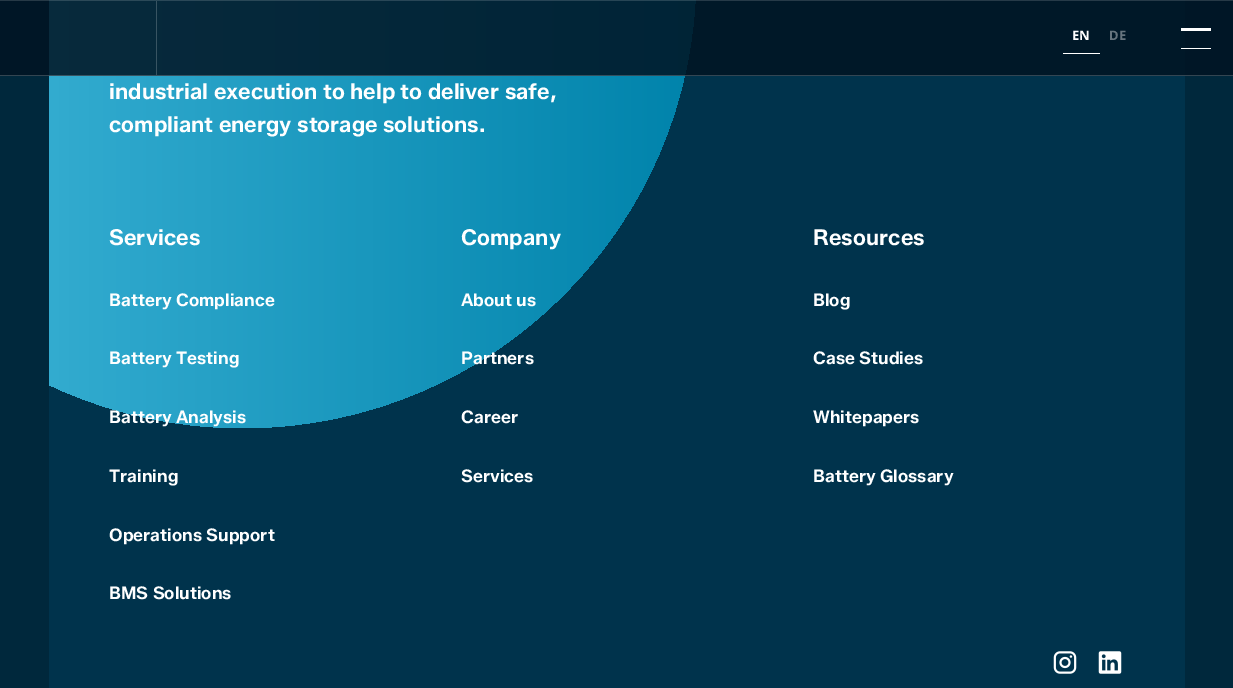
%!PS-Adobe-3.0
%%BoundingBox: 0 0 1233 688
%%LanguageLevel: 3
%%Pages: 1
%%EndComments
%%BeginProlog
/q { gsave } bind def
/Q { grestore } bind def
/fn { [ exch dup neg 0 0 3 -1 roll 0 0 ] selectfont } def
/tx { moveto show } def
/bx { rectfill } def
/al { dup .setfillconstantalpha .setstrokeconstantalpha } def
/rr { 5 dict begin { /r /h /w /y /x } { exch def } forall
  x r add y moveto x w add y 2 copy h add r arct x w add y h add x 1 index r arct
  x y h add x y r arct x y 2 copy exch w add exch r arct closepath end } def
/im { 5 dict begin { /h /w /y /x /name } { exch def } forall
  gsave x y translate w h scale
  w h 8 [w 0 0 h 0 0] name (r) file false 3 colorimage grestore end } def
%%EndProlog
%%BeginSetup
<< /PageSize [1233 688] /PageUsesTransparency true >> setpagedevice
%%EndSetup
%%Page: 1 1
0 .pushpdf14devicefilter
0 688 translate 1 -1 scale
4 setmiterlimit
0 0.157 0.235 setrgbcolor
0 0 1233 688 bx
0 0.2 0.298 setrgbcolor
49 0 1136 688 bx
q
49 -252 1136 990 16 rr clip newpath
q -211 -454 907 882 453.5 rr clip newpath
<< /ShadingType 2 /ColorSpace /DeviceRGB /Coords [-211 -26 696 -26] /Extend [true true] /Function << /FunctionType 3 /Domain [0 1] /Functions [<< /FunctionType 2 /Domain [0 1] /C0 [0.8 0.925 0.965] /C1 [0.196 0.671 0.812] /N 1 >> << /FunctionType 2 /Domain [0 1] /C0 [0.196 0.671 0.812] /C1 [0 0.514 0.671] /N 1 >>] /Bounds [0.29] /Encode [0 1 0 1] >> >> shfill Q
Q
0.85 al
0 0.075 0.133 setrgbcolor
0 0 1233 76 bx
0.15 al
1 setgray
0 0 1233 1 bx
0.2 al
0 75 1233 1 bx
156 1 1 74 bx
/NotoSans-Bold 13 fn
1 al
(EN) 1072 40 tx
1063 53 37 1 bx
0.4 0.455 0.494 setrgbcolor
(DE) 1109 40 tx
1 setgray
1181 28 30 3 bx
1181 48 30 1 bx
/ZalandoSans-SemiBold 22 fn
(industrial execution to help to deliver safe,) 109 99 tx
(compliant energy storage solutions.) 109 132 tx
(Services) 109 245 tx
/ZalandoSans-SemiBold 17.5 fn
(Battery Compliance) 109 306 tx
(Battery Testing) 109 364 tx
(Battery Analysis) 109 423 tx
(Training) 109 482 tx
(Operations Support) 109 541 tx
(BMS Solutions) 109 599 tx
/ZalandoSans-SemiBold 22 fn
(Company) 461 245 tx
/ZalandoSans-SemiBold 17.5 fn
(About us) 461 306 tx
(Partners) 461 364 tx
(Career) 461 423 tx
(Services) 461 482 tx
/ZalandoSans-SemiBold 22 fn
(Resources) 813 245 tx
/ZalandoSans-SemiBold 17.5 fn
(Blog) 813 306 tx
(Case Studies) 813 364 tx
(Whitepapers) 813 423 tx
(Battery Glossary) 813 482 tx
(image0.raw) 1053 651 24 23 im
(image1.raw) 1098 651 24 23 im
.poppdf14devicefilter showpage
%%EOF
